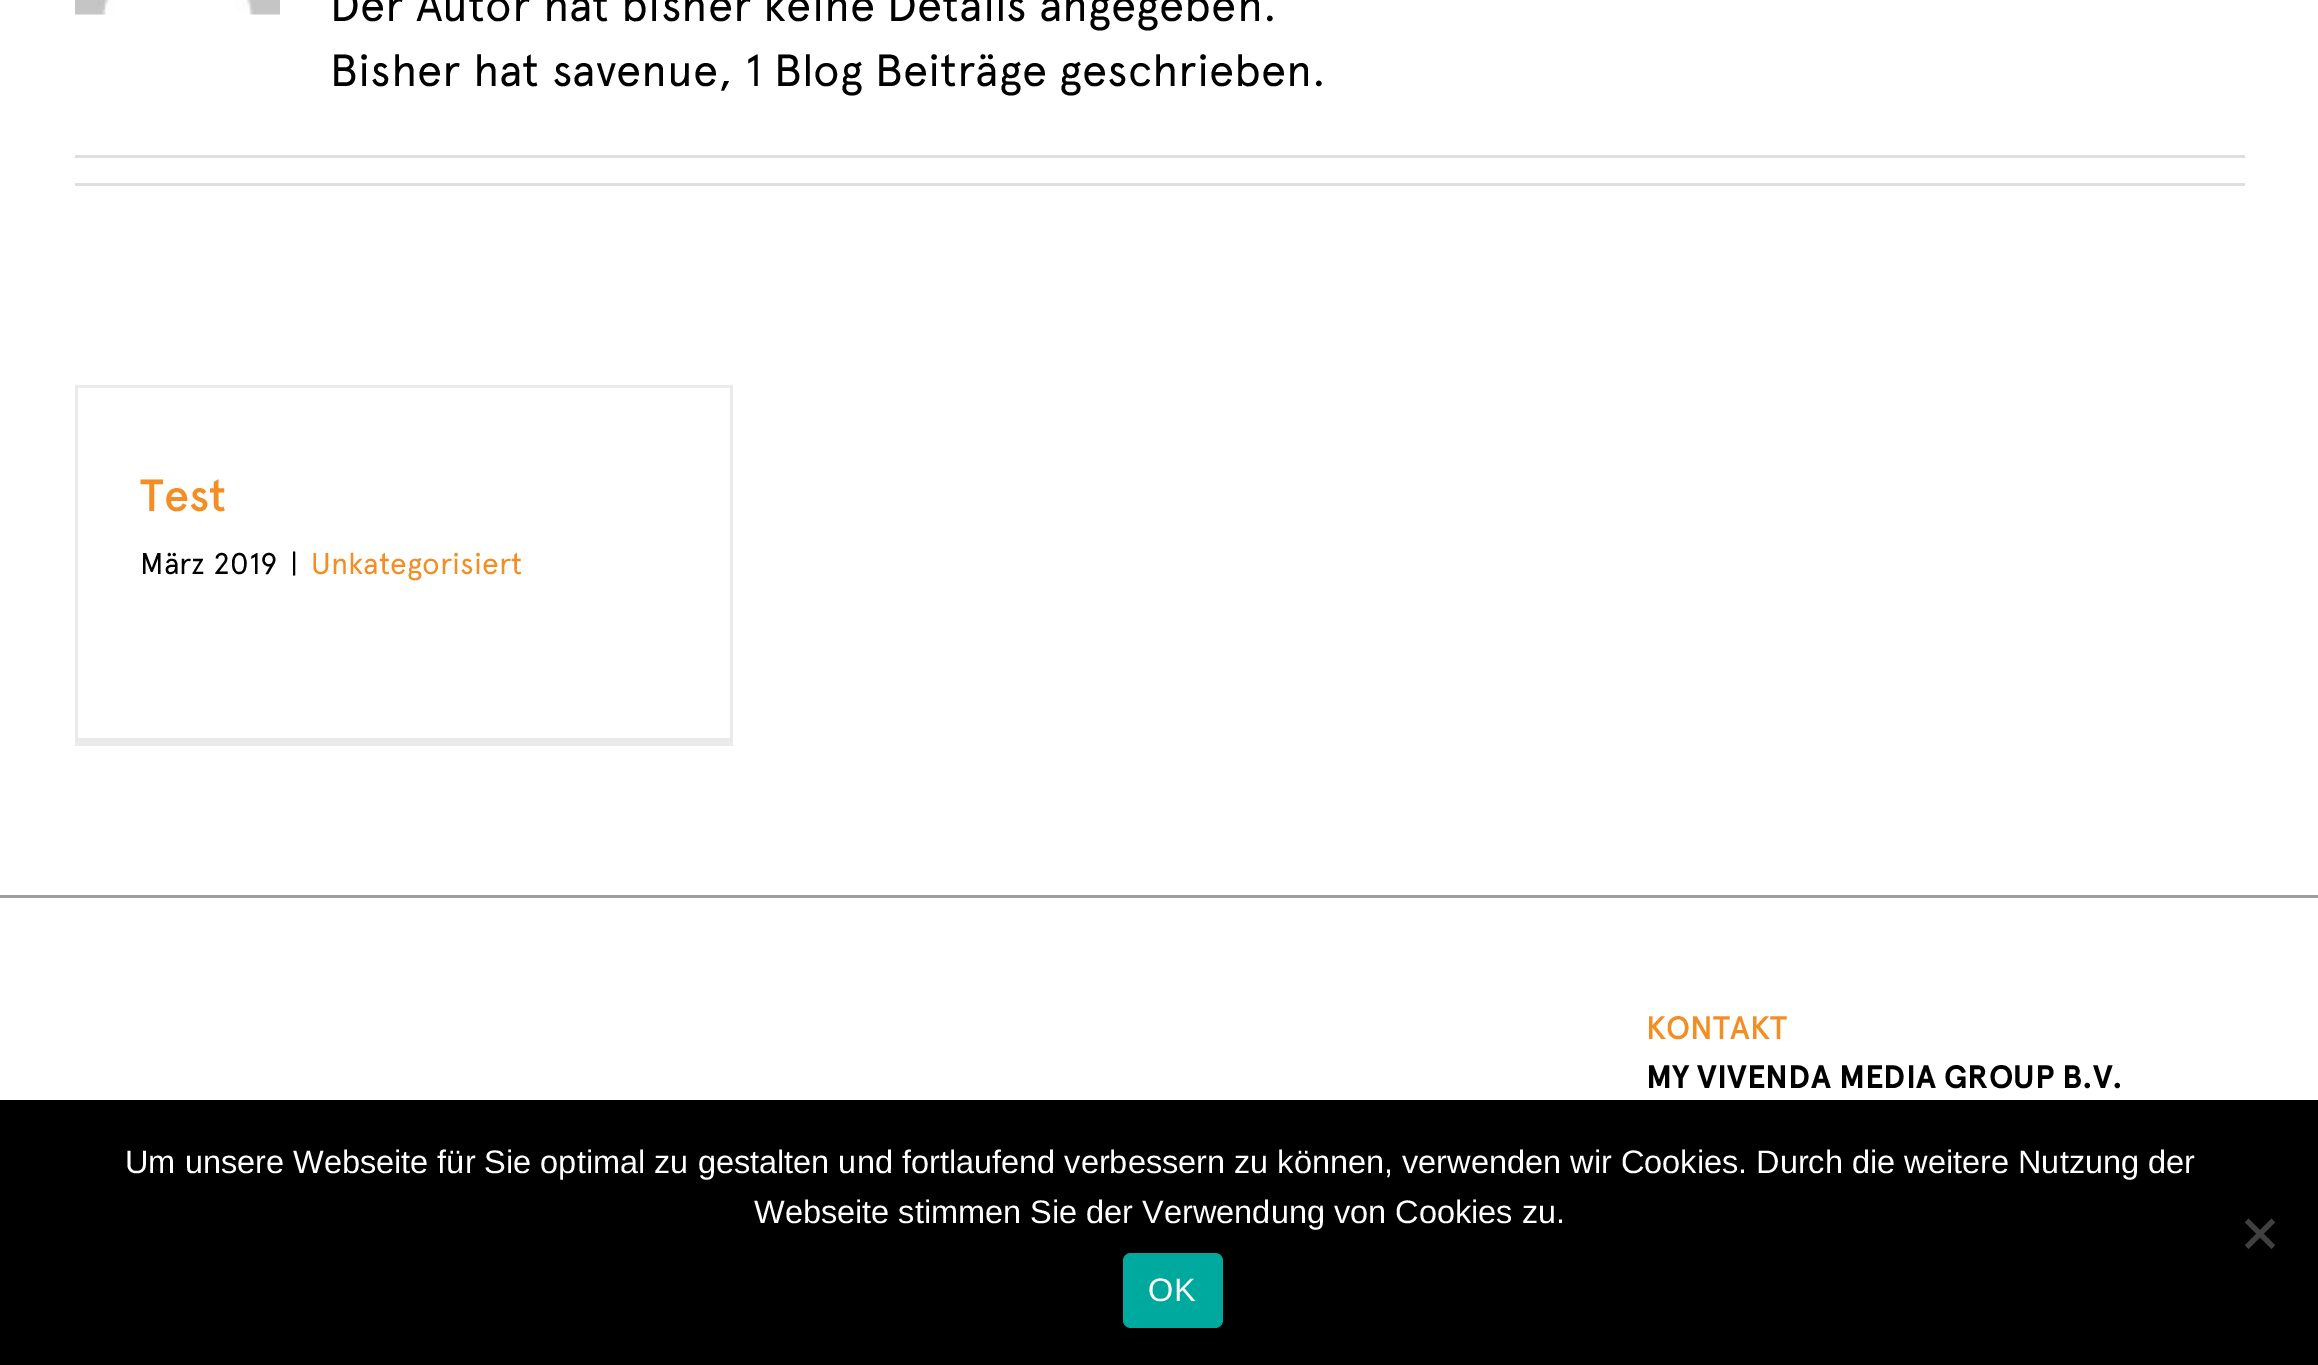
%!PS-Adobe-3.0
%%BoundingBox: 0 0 2318 1365
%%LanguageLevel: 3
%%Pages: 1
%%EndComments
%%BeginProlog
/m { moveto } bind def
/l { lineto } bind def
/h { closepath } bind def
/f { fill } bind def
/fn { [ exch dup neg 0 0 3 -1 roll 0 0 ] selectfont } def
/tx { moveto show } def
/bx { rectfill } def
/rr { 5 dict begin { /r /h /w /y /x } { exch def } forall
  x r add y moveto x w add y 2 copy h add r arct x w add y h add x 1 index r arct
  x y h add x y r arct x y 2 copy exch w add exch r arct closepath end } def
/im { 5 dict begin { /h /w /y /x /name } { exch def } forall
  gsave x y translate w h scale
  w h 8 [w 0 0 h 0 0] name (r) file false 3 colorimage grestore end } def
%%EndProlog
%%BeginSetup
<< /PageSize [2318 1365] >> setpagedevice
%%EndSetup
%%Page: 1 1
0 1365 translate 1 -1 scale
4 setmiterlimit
1 setgray
0 0 2318 1365 bx
(image0.raw) 75 0 205 15 im
/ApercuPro-Regular 45 fn
0 setgray
(Der Autor hat bisher keine Details angegeben.) 330 21 tx
(Bisher hat savenue, 1 Blog Beiträge geschrieben.) 330 86 tx
0.878 0.871 0.871 setrgbcolor
75 155 2170 3 bx
75 183 2170 3 bx
0.922 0.918 0.918 setrgbcolor
75 385 658 3 bx
730 385 3 360 bx
75 738 658 8 bx
75 385 3 360 bx
/ApercuPro-Medium 45 fn
0.949 0.557 0.137 setrgbcolor
(Test) 140 511 tx
/ApercuPro-Regular 30 fn
0 setgray
(März 2019) 140 574 tx
(|) 290 574 tx
0.949 0.557 0.137 setrgbcolor
(Unkategorisiert) 311 574 tx
0.62 setgray
0 895 2318 3 bx
/ApercuPro-Medium 32.5 fn
0.949 0.557 0.137 setrgbcolor
(KONTAKT) 1646 1039 tx
/ApercuPro-Bold 32.5 fn
0 setgray
(MY VIVENDA MEDIA GROUP B.V.) 1646 1088 tx
0 1100 2318 265 bx
/LiberationSans-Regular 32.5 fn
1 setgray
(Um unsere Webseite für Sie optimal zu gestalten und fortlaufend verbessern zu können, verwenden wir Cookies. Durch die weitere Nutzung der) 125 1173 tx
(Webseite stimmen Sie der Verwendung von Cookies zu.) 754 1223 tx
0.251 setgray
2271.5 1218.5 m 2275 1222.5 l 2248.5 1249 l 2245 1245 l h f
2245 1222.5 m 2248.5 1218.5 l 2275 1245 l 2271.5 1249 l h f
0 0.663 0.616 setrgbcolor
1123 1253 100 75 8 rr f
1 setgray
1148 1301 m 1 0 (OK) ashow
showpage
%%EOF
